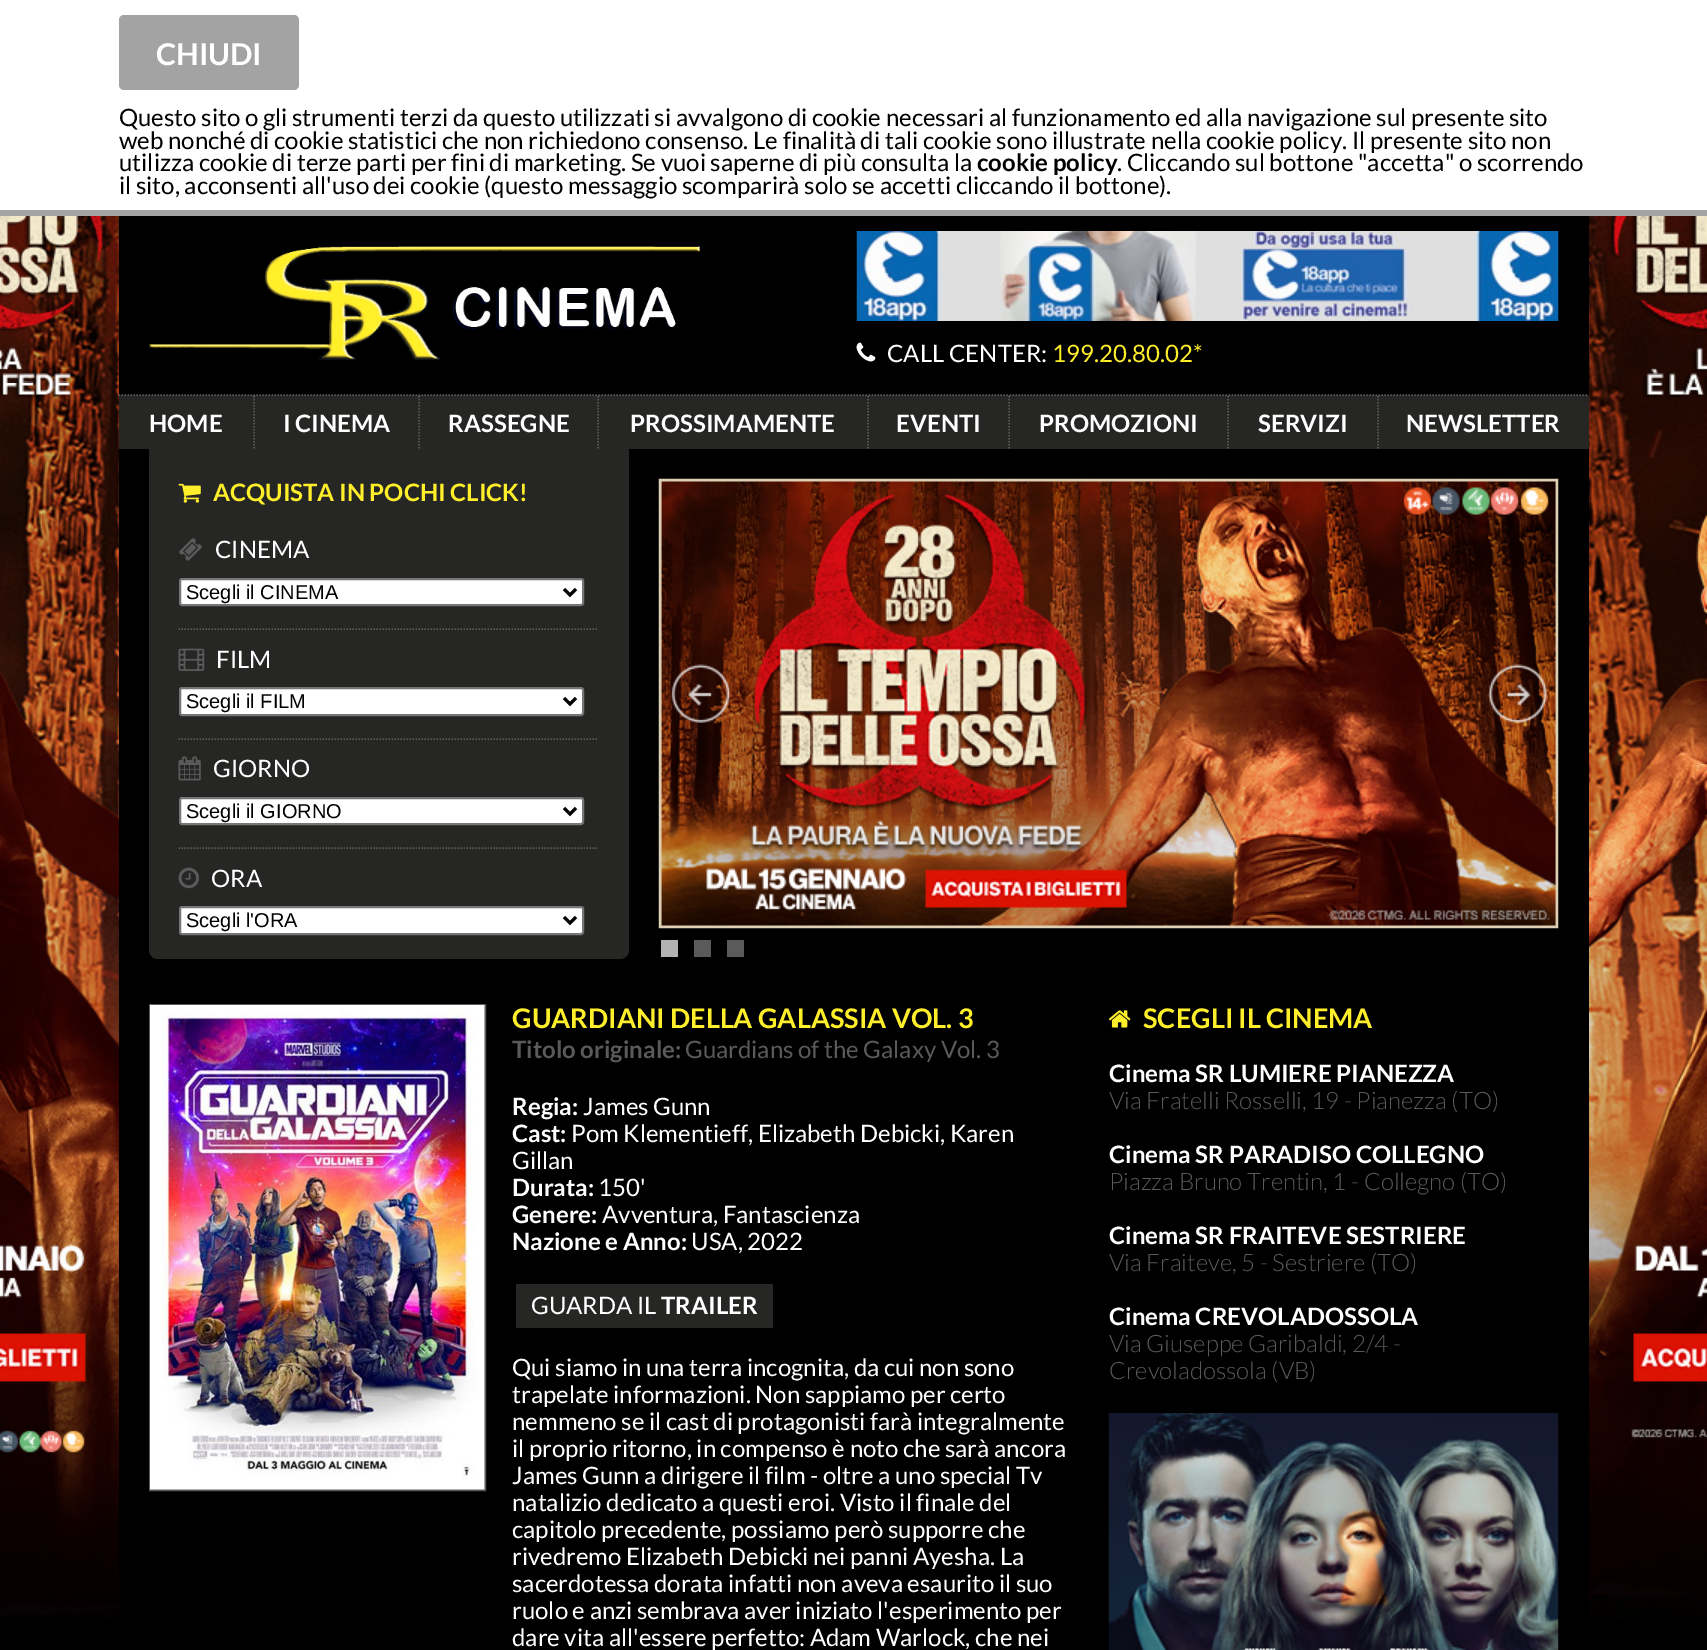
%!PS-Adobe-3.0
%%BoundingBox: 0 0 1707 1650
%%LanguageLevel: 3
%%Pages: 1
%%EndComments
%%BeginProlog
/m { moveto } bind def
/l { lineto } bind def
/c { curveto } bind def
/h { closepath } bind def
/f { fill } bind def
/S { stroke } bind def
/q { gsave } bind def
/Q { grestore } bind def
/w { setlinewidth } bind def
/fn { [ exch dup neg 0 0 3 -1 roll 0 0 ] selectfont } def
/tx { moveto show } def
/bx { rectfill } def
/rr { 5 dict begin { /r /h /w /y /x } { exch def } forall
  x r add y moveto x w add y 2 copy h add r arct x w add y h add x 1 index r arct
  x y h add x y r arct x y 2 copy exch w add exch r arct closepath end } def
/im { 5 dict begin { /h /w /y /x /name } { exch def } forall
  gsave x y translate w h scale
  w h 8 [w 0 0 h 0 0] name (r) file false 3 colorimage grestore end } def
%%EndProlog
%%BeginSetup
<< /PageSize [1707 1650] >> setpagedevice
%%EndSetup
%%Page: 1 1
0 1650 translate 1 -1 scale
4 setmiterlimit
1 setgray
0 0 1707 1650 bx
0.639 setgray
0 210 1707 6 bx
119 15 180 75 5 rr f
/Lato-Bold 30 fn
1 setgray
(CHIUDI) 156 65 tx
/Lato-Regular 24 fn
0 setgray
(Questo sito o gli strumenti terzi da questo utilizzati si avvalgono di cookie necessari al funzionamento ed alla navigazione sul presente sito) 119 126 tx
(web nonché di cookie statistici che non richiedono consenso. Le finalità di tali cookie sono illustrate nella cookie policy. Il presente sito non) 119 149 tx
(utilizza cookie di terze parti per fini di marketing. Se vuoi saperne di più consulta la) 119 171 tx
/Lato-Bold 24 fn
(cookie policy) 977 171 tx
/Lato-Regular 24 fn
(. Cliccando sul bottone "accetta" o scorrendo) 1117 171 tx
(il sito, acconsenti all'uso dei cookie \(questo messaggio scomparirà solo se accetti cliccando il bottone\).) 119 194 tx
0 1619 1707 31 bx
(image0.raw) 0 216 1707 1405 im
119 216 1470 179 bx
(image1.raw) 149 246 551 114 im
(image2.raw) 856 231 703 90 im
(image3.raw) 856 342 20 20 im
1 setgray
(CALL CENTER:) 887 362 tx
1 0.937 0.169 setrgbcolor
(199.20.80.02*) 1052 362 tx
0.149 0.149 0.145 setrgbcolor
119 395 1470 54 bx
0.353 setgray
1.5 w
[1.5 1.5] 0 setdash
118.5 395 m 1588.5 395 l S
254 396 m 254 448.5 l S
/Lato-Bold 24 fn
1 setgray
(HOME) 149 432 tx
0.353 setgray
419 396 m 419 448.5 l S
1 setgray
(I CINEMA) 283 432 tx
0.353 setgray
598 396 m 598 448.5 l S
1 setgray
(RASSEGNE) 448 432 tx
0.353 setgray
868 396 m 868 448.5 l S
1 setgray
(PROSSIMAMENTE) 630 432 tx
0.353 setgray
1009 396 m 1009 448.5 l S
1 setgray
(EVENTI) 896 432 tx
0.353 setgray
1228 396 m 1228 448.5 l S
1 setgray
(PROMOZIONI) 1039 432 tx
0.353 setgray
1378 396 m 1378 448.5 l S
1 setgray
(SERVIZI) 1258 432 tx
(NEWSLETTER) 1406 432 tx
0 setgray
119 449 1470 1172 bx
0.149 0.149 0.145 setrgbcolor
149 449 m 629 449 l 629 950 l 629 955 625 959 620 959 c 158 959 l 153 959 149 955 149 950 c h f
(image4.raw) 178 483 23 20 im
1 0.937 0.169 setrgbcolor
(ACQUISTA IN POCHI CLICK!) 213 501 tx
(image5.raw) 179 538 23 23 im
/Lato-Regular 24 fn
1 setgray
(CINEMA) 215 558 tx
180 579 403 26 2 rr q f Q
0.463 setgray
2 w
[] 0 setdash
S
0 setgray
3 w
564 589 m 570 595 l 576 589 l S
/LiberationSans-Regular 20 fn
(Scegli il CINEMA) 186 599 tx
0.353 setgray
1.5 w
[1.5 1.5] 0 setdash
178.5 629 m 598.5 629 l S
(image6.raw) 178 648 27 23 im
/Lato-Regular 24 fn
1 setgray
(FILM) 216 668 tx
180 688 403 27 2 rr q f Q
0.463 setgray
2 w
[] 0 setdash
S
0 setgray
3 w
564 698 m 570 704 l 576 698 l S
/LiberationSans-Regular 20 fn
(Scegli il FILM) 186 708 tx
0.353 setgray
1.5 w
[1.5 1.5] 0 setdash
178.5 739 m 598.5 739 l S
(image7.raw) 178 756 23 25 im
/Lato-Regular 24 fn
1 setgray
(GIORNO) 213 777 tx
180 798 403 26 2 rr q f Q
0.463 setgray
2 w
[] 0 setdash
S
0 setgray
3 w
564 808 m 570 814 l 576 808 l S
/LiberationSans-Regular 20 fn
(Scegli il GIORNO) 186 818 tx
0.353 setgray
1.5 w
[1.5 1.5] 0 setdash
178.5 848 m 598.5 848 l S
(image8.raw) 178 867 21 22 im
/Lato-Regular 24 fn
1 setgray
(ORA) 211 887 tx
180 907 403 27 2 rr q f Q
0.463 setgray
2 w
[] 0 setdash
S
0 setgray
3 w
564 917 m 570 923 l 576 917 l S
/LiberationSans-Regular 20 fn
(Scegli l'ORA) 186 927 tx
(image9.raw) 658 478 901 451 im
(image10.raw) 671 664 60 59 im
(image11.raw) 1488 664 59 59 im
0.702 setgray
661 940 17 17 bx
0.353 setgray
694 940 17 17 bx
727 940 17 17 bx
2 w
150 1005 335 485 rectstroke
(image12.raw) 150 1005 335 485 im
/Lato-Bold 27 fn
1 0.937 0.169 setrgbcolor
(GUARDIANI DELLA GALASSIA VOL. 3) 512 1028 tx
/Lato-Bold 24 fn
0.353 setgray
(Titolo originale:) 512 1058 tx
/Lato-Regular 24 fn
(Guardians of the Galaxy Vol. 3) 685 1058 tx
/Lato-Bold 24 fn
1 setgray
(Regia:) 512 1115 tx
/Lato-Regular 24 fn
(James Gunn) 583 1115 tx
/Lato-Bold 24 fn
(Cast:) 512 1142 tx
/Lato-Regular 24 fn
(Pom Klementieff, Elizabeth Debicki, Karen) 571 1142 tx
(Gillan) 512 1169 tx
/Lato-Bold 24 fn
(Durata:) 512 1196 tx
/Lato-Regular 24 fn
(150') 598 1196 tx
/Lato-Bold 24 fn
(Genere:) 512 1223 tx
/Lato-Regular 24 fn
(Avventura, Fantascienza) 602 1223 tx
/Lato-Bold 24 fn
(Nazione e Anno:) 512 1250 tx
/Lato-Regular 24 fn
(USA, 2022) 691 1250 tx
0.149 0.149 0.145 setrgbcolor
516 1284 257 44 bx
1 setgray
(GUARDA IL) 531 1314 tx
/Lato-Bold 24 fn
(TRAILER) 661 1314 tx
/Lato-Regular 24 fn
(Qui siamo in una terra incognita, da cui non sono) 512 1376 tx
(trapelate informazioni. Non sappiamo per certo) 512 1403 tx
(nemmeno se il cast di protagonisti farà integralmente) 512 1430 tx
(il proprio ritorno, in compenso è noto che sarà ancora) 512 1457 tx
(James Gunn a dirigere il film - oltre a uno special Tv) 512 1484 tx
(natalizio dedicato a questi eroi. Visto il finale del) 512 1511 tx
(capitolo precedente, possiamo però supporre che) 512 1538 tx
(rivedremo Elizabeth Debicki nei panni Ayesha. La) 512 1565 tx
(sacerdotessa dorata infatti non aveva esaurito il suo) 512 1592 tx
(ruolo e anzi sembrava aver iniziato l'esperimento per) 512 1619 tx
(dare vita all'essere perfetto: Adam Warlock, che nei) 512 1646 tx
(image13.raw) 1108 1010 23 18 im
/Lato-Bold 27 fn
1 0.937 0.169 setrgbcolor
(SCEGLI IL CINEMA) 1143 1028 tx
/Lato-Bold 24 fn
1 setgray
(Cinema SR LUMIERE PIANEZZA) 1109 1082 tx
/Lato-Light 24 fn
0.353 setgray
(Via Fratelli Rosselli, 19 - Pianezza \(TO\)) 1109 1109 tx
/Lato-Bold 24 fn
1 setgray
(Cinema SR PARADISO COLLEGNO) 1109 1163 tx
/Lato-Light 24 fn
0.353 setgray
(Piazza Bruno Trentin, 1 - Collegno \(TO\)) 1109 1190 tx
/Lato-Bold 24 fn
1 setgray
(Cinema SR FRAITEVE SESTRIERE) 1109 1244 tx
/Lato-Light 24 fn
0.353 setgray
(Via Fraiteve, 5 - Sestriere \(TO\)) 1109 1271 tx
/Lato-Bold 24 fn
1 setgray
(Cinema CREVOLADOSSOLA) 1109 1325 tx
/Lato-Light 24 fn
0.353 setgray
(Via Giuseppe Garibaldi, 2/4 -) 1109 1352 tx
(Crevoladossola \(VB\)) 1109 1379 tx
(image14.raw) 1108 1413 451 237 im
showpage
%%EOF
